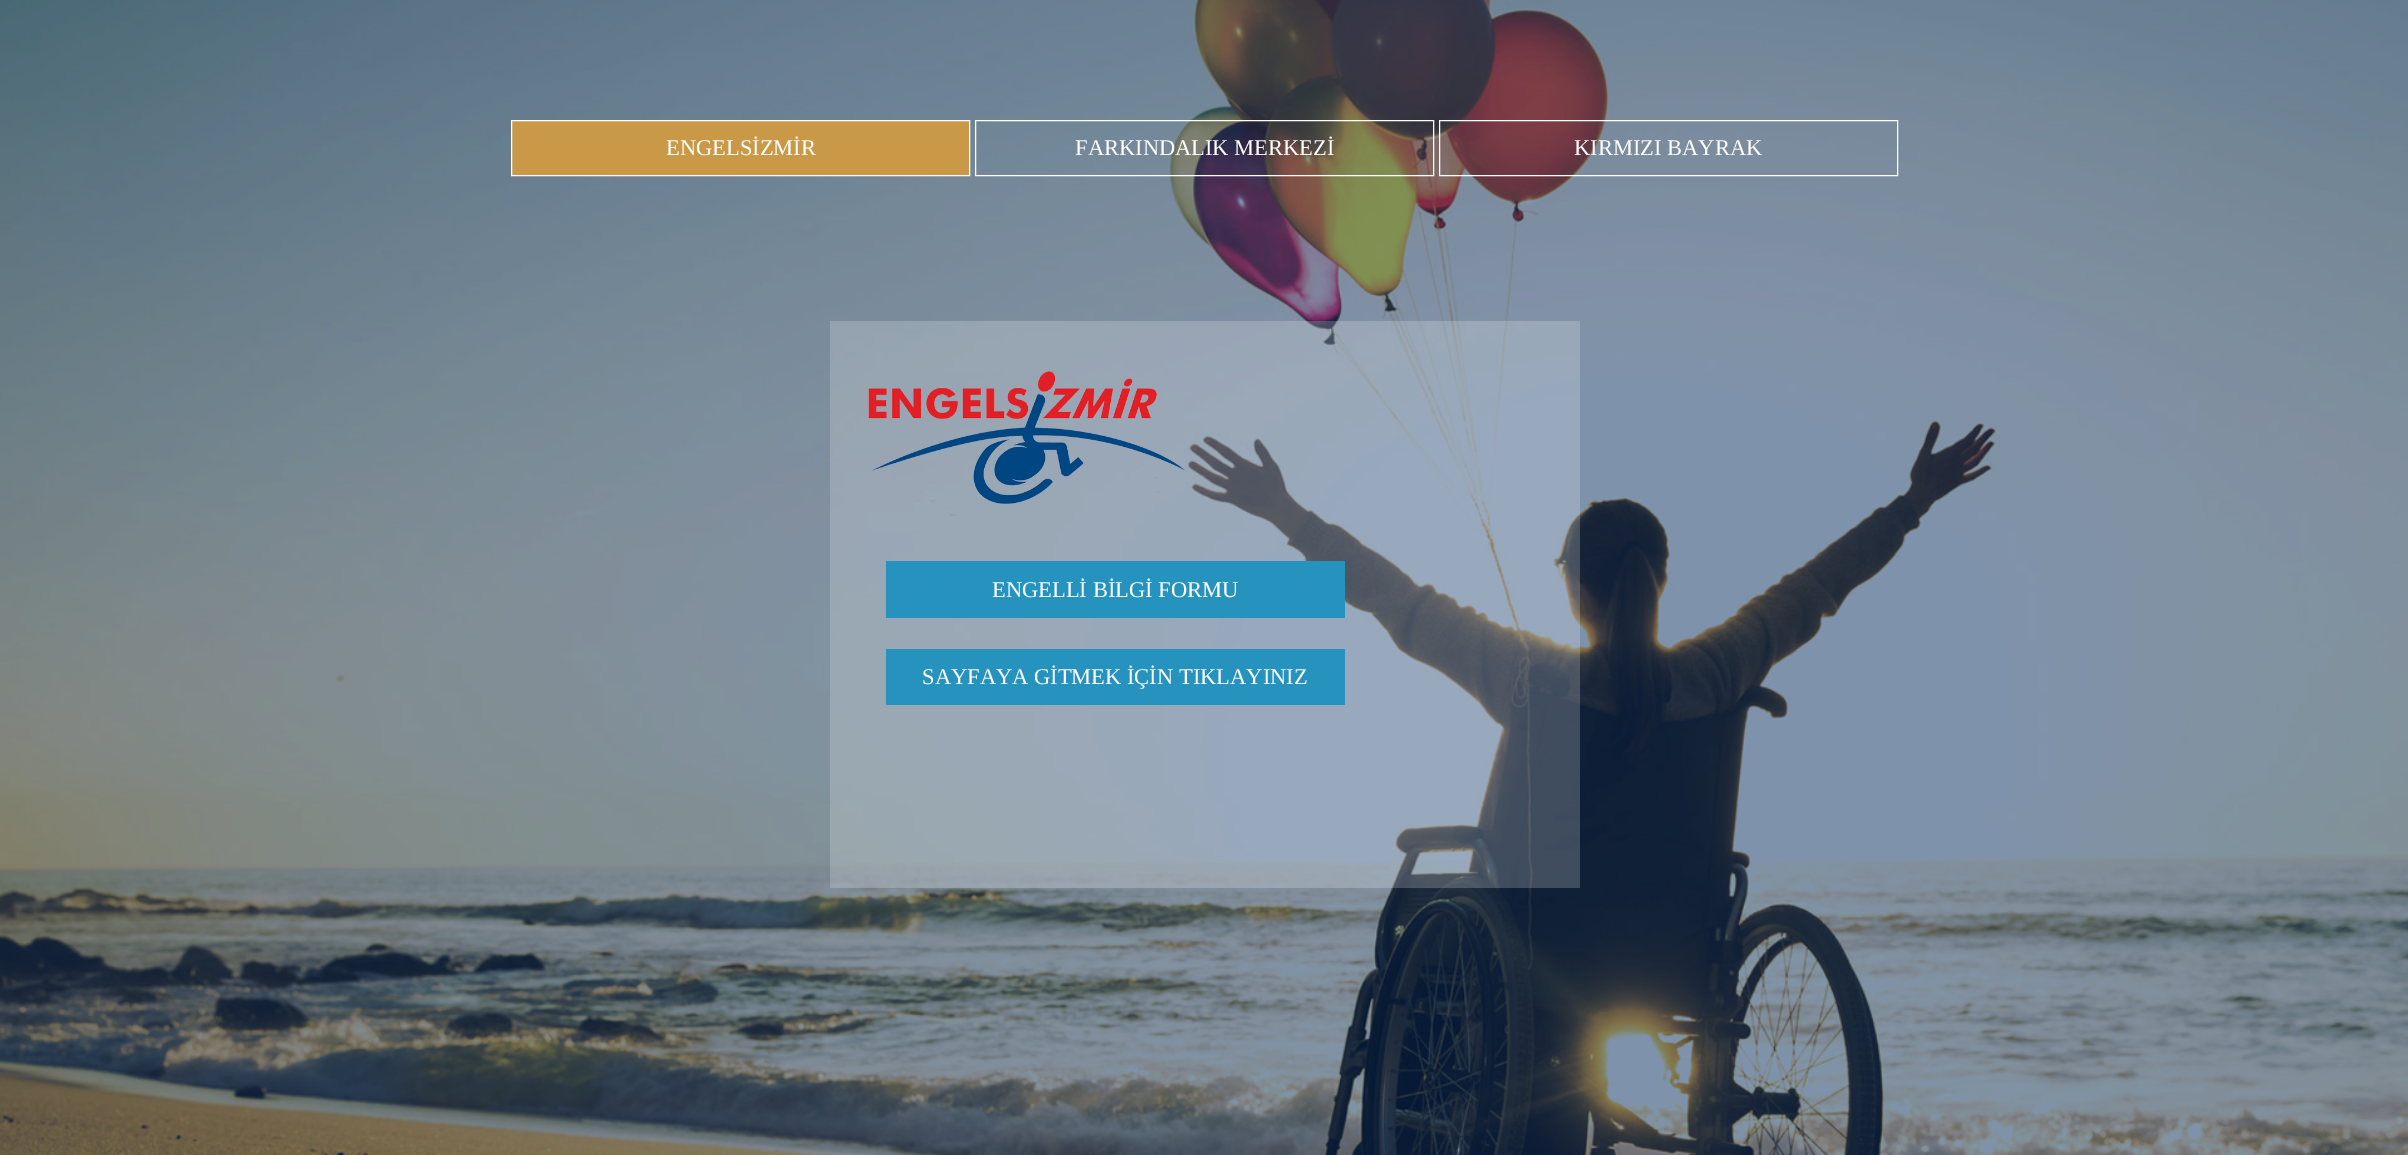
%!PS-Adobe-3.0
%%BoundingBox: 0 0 2408 1155
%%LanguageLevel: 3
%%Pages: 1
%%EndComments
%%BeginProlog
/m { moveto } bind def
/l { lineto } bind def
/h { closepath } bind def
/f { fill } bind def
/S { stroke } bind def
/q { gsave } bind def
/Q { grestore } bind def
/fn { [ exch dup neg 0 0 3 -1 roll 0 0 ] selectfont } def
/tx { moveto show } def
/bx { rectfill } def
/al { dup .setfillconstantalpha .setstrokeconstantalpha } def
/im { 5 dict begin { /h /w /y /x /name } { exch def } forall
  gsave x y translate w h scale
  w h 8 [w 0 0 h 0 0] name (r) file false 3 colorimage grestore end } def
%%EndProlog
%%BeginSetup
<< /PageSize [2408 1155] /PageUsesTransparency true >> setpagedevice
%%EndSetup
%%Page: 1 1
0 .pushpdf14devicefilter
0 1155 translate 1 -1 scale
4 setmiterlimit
1 setgray
0 0 2408 1155 bx
(image0.raw) 0 0 2408 1155 im
0.788 0.6 0.278 setrgbcolor
511.5 120.5 m 969.5 120.5 l 969.5 175.5 l 511.5 175.5 l h q f Q
1 setgray
S
/LiberationSerif-Regular 22.5 fn
(ENGELSİZMİR) 666 155 tx
975.5 120.5 458 55 rectstroke
(FARKINDALIK MERKEZİ) 1075 155 tx
1439.5 120.5 458 55 rectstroke
(KIRMIZI BAYRAK) 1574 155 tx
0.2 al
830 321 750 567 bx
1 al
(image1.raw) 868 371 317 159 im
0.149 0.576 0.749 setrgbcolor
886 561 459 57 bx
1 setgray
(ENGELLİ BİLGİ FORMU) 992 597 tx
0.149 0.576 0.749 setrgbcolor
886 649 459 56 bx
1 setgray
(SAYFAYA GİTMEK İÇİN TIKLAYINIZ) 922 684 tx
.poppdf14devicefilter showpage
%%EOF
